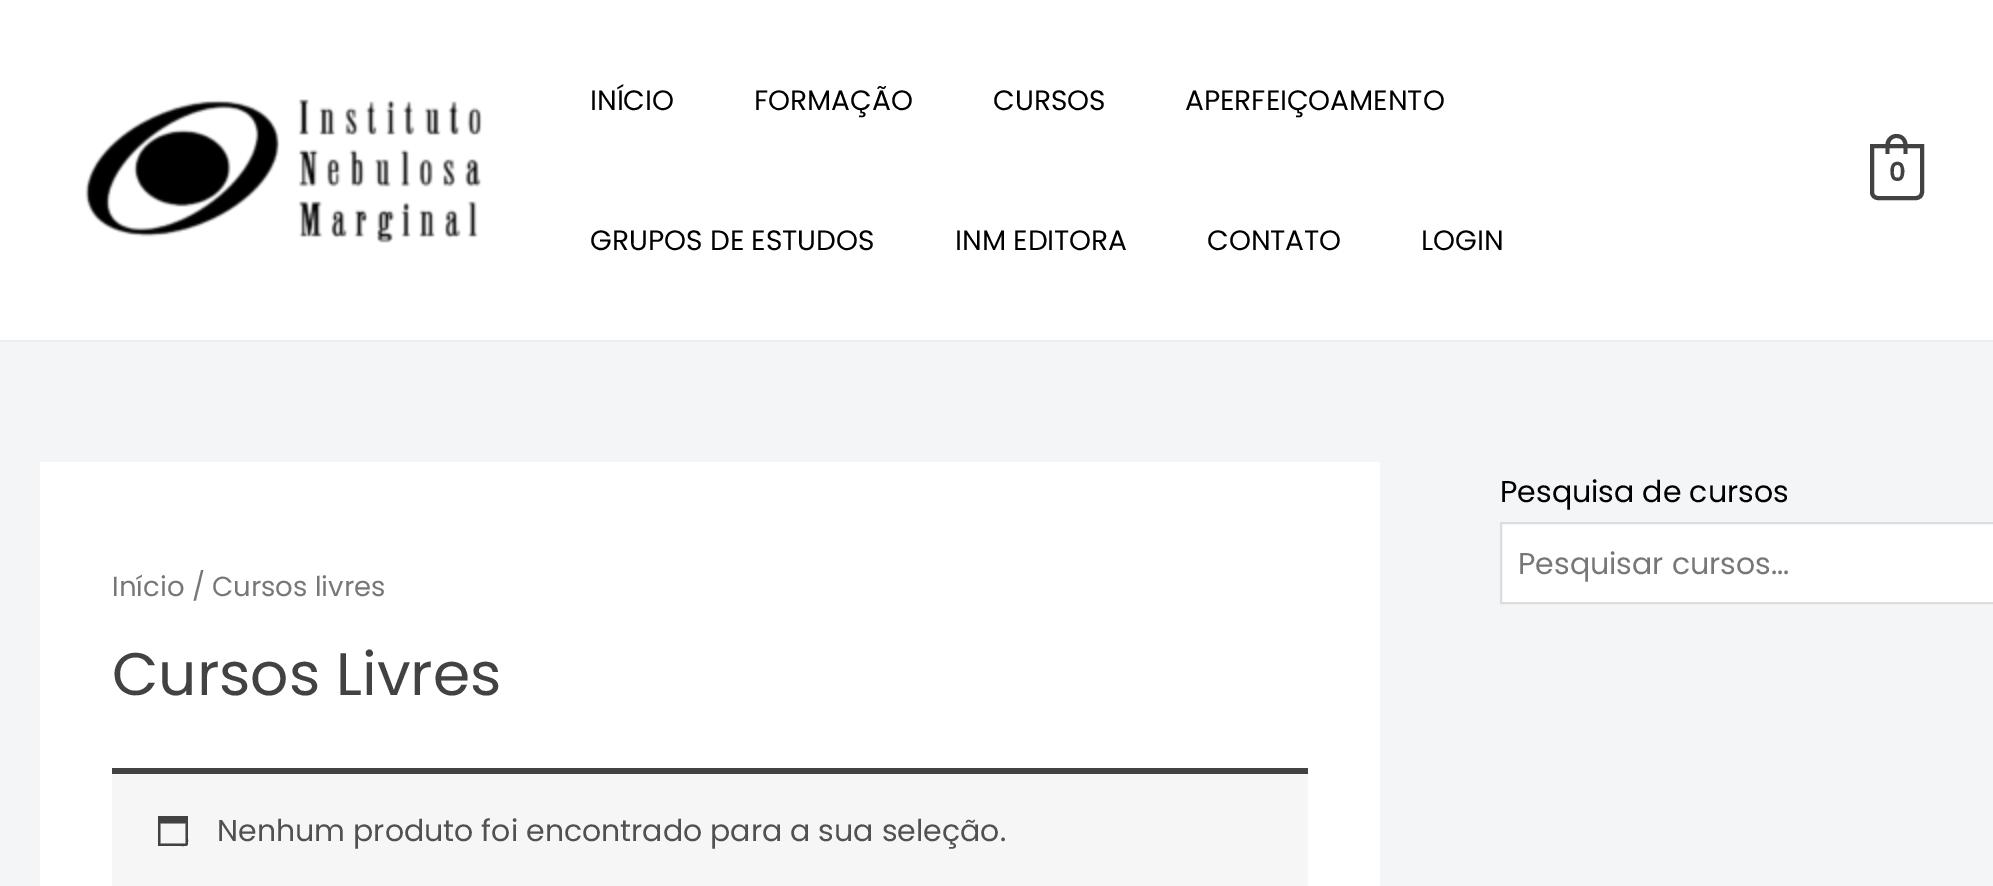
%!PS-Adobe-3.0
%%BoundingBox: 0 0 1993 886
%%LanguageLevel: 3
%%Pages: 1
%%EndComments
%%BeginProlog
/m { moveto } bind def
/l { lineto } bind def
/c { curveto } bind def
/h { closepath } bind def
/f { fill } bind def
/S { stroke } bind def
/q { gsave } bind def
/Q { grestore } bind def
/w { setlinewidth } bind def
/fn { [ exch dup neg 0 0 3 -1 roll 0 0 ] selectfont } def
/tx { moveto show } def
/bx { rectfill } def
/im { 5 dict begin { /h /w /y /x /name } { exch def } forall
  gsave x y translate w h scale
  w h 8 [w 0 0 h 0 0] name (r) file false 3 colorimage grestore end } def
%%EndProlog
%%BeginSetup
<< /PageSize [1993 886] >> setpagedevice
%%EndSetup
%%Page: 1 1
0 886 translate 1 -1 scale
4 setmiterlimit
0.957 0.961 0.965 setrgbcolor
0 0 1993 886 bx
1 setgray
0 0 1993 340 bx
0.929 setgray
0 340 1993 2 bx
(image0.raw) 85 99 397 144 im
/Poppins-Regular 28 fn
0 setgray
(INÍCIO) 590 110 tx
(FORMAÇÃO) 754 110 tx
(CURSOS) 993 110 tx
(APERFEIÇOAMENTO) 1185 110 tx
(GRUPOS DE ESTUDOS) 590 250 tx
(INM EDITORA) 955 250 tx
(CONTATO) 1207 250 tx
(LOGIN) 1421 250 tx
0.259 setgray
4 w
1872 146 m 1922 146 l 1922 192 l 1922 195.5 1919.5 198 1916 198 c 1878 198 l 1874.5 198 1872 195.5 1872 192 c h S
1896.5 134 m 1903 134 1907.5 139 1907.5 145 c 1907.5 154 l 1885.5 154 l 1885.5 145 l 1885.5 139 1890.5 134 1896.5 134 c h 1896.5 138 m 1905.5 138 1903.5 148.5 1903.5 154 c 1889.5 154 l 1889.5 148.5 1888 138 1896.5 138 c h eofill
/Poppins-SemiBold 26 fn
(0) 1889 181 tx
/Poppins-Regular 30 fn
0 setgray
(Pesquisa de cursos) 1500 502 tx
1 setgray
1501 523 m 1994 523 l 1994 603 l 1501 603 l h q f Q
0.867 setgray
2 w
S
0.467 setgray
(Pesquisar cursos...) 1518 574 tx
1 setgray
40 462 1340 424 bx
/Poppins-Regular 27.5 fn
0.467 setgray
(Início / Cursos livres) 112 596 tx
/Poppins-Regular 60 fn
0.259 setgray
(Cursos Livres) 112 695 tx
0.969 0.965 0.969 setrgbcolor
112 774 1196 112 bx
0.259 setgray
112 768 1196 6 bx
185.5 823.5 m 160.5 823.5 l 160.5 843.5 l 185.5 843.5 l h 188 816 m 188 839 l 188 846.5 188.5 846 181 846 c 158 846 l 158 816 l h f
/Poppins-Regular 30 fn
0.318 setgray
(Nenhum produto foi encontrado para a sua seleção.) 217 841 tx
showpage
%%EOF
